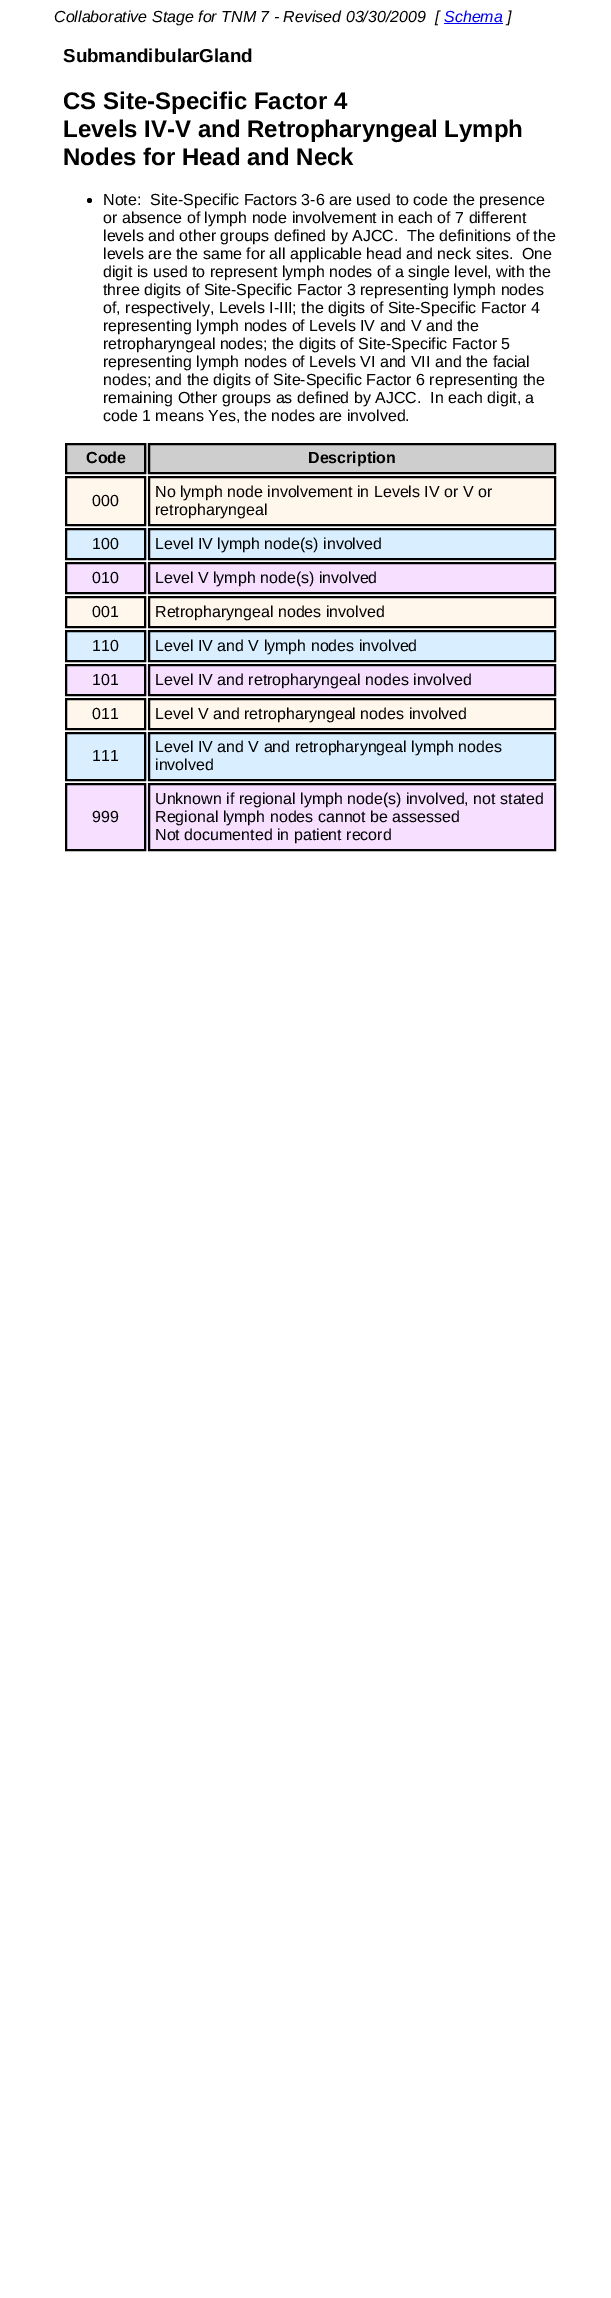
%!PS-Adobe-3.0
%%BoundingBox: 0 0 611 2298
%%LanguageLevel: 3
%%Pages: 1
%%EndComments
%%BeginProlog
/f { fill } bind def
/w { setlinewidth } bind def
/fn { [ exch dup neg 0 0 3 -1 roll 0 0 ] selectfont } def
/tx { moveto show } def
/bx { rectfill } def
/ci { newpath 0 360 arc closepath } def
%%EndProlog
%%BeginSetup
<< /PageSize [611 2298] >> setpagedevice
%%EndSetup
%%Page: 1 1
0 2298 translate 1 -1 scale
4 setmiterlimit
1 setgray
0 0 611 2298 bx
/LiberationSans-Italic 16 fn
0 setgray
(Collaborative Stage for TNM 7 - Revised 03/30/2009  [) 54 22 tx
0 0 0.933 setrgbcolor
(Schema) 444 22 tx
444 23 59 1 bx
0 setgray
(]) 507 22 tx
/LiberationSans-Bold 18.75 fn
(SubmandibularGland) 63 62 tx
/LiberationSans-Bold 24 fn
(CS Site-Specific Factor 4) 63 109 tx
(Levels IV-V and Retropharyngeal Lymph) 63 137 tx
(Nodes for Head and Neck) 63 165 tx
89.5 200.5 2.5 ci f
/LiberationSans-Regular 16 fn
(Note:  Site-Specific Factors 3-6 are used to code the presence) 103 205 tx
(or absence of lymph node involvement in each of 7 different) 103 223 tx
(levels and other groups defined by AJCC.  The definitions of the) 103 241 tx
(levels are the same for all applicable head and neck sites.  One) 103 259 tx
(digit is used to represent lymph nodes of a single level, with the) 103 277 tx
(three digits of Site-Specific Factor 3 representing lymph nodes) 103 295 tx
(of, respectively, Levels I-III; the digits of Site-Specific Factor 4) 103 313 tx
(representing lymph nodes of Levels IV and V and the) 103 331 tx
(retropharyngeal nodes; the digits of Site-Specific Factor 5) 103 349 tx
(representing lymph nodes of Levels VI and VII and the facial) 103 367 tx
(nodes; and the digits of Site-Specific Factor 6 representing the) 103 385 tx
(remaining Other groups as defined by AJCC.  In each digit, a) 103 403 tx
(code 1 means Yes, the nodes are involved.) 103 421 tx
0.808 setgray
67 443 487 31 bx
0 setgray
2 w
66 444 79 29 rectstroke
/LiberationSans-Bold 16 fn
(Code) 86 463 tx
149 444 406 29 rectstroke
(Description) 308 463 tx
1 0.969 0.925 setrgbcolor
67 476 487 50 bx
0 setgray
66 477 79 48 rectstroke
/LiberationSans-Regular 16 fn
(000) 92 506 tx
149 477 406 48 rectstroke
(No lymph node involvement in Levels IV or V or) 155 497 tx
(retropharyngeal) 155 515 tx
0.851 0.937 1 setrgbcolor
67 528 487 32 bx
0 setgray
66 529 79 30 rectstroke
(100) 92 549 tx
149 529 406 30 rectstroke
(Level IV lymph node\(s\) involved) 155 549 tx
0.965 0.875 1 setrgbcolor
67 562 487 32 bx
0 setgray
66 563 79 30 rectstroke
(010) 92 583 tx
149 563 406 30 rectstroke
(Level V lymph node\(s\) involved) 155 583 tx
1 0.969 0.925 setrgbcolor
67 596 487 32 bx
0 setgray
66 597 79 30 rectstroke
(001) 92 617 tx
149 597 406 30 rectstroke
(Retropharyngeal nodes involved) 155 617 tx
0.851 0.937 1 setrgbcolor
67 630 487 32 bx
0 setgray
66 631 79 30 rectstroke
(110) 92 651 tx
149 631 406 30 rectstroke
(Level IV and V lymph nodes involved) 155 651 tx
0.965 0.875 1 setrgbcolor
67 664 487 32 bx
0 setgray
66 665 79 30 rectstroke
(101) 92 685 tx
149 665 406 30 rectstroke
(Level IV and retropharyngeal nodes involved) 155 685 tx
1 0.969 0.925 setrgbcolor
67 698 487 32 bx
0 setgray
66 699 79 30 rectstroke
(011) 92 719 tx
149 699 406 30 rectstroke
(Level V and retropharyngeal nodes involved) 155 719 tx
0.851 0.937 1 setrgbcolor
67 732 487 49 bx
0 setgray
66 733 79 47 rectstroke
(111) 92 761 tx
149 733 406 47 rectstroke
(Level IV and V and retropharyngeal lymph nodes) 155 752 tx
(involved) 155 770 tx
0.965 0.875 1 setrgbcolor
67 783 487 68 bx
0 setgray
66 784 79 66 rectstroke
(999) 92 822 tx
149 784 406 66 rectstroke
(Unknown if regional lymph node\(s\) involved, not stated) 155 804 tx
(Regional lymph nodes cannot be assessed) 155 822 tx
(Not documented in patient record) 155 840 tx
showpage
%%EOF
